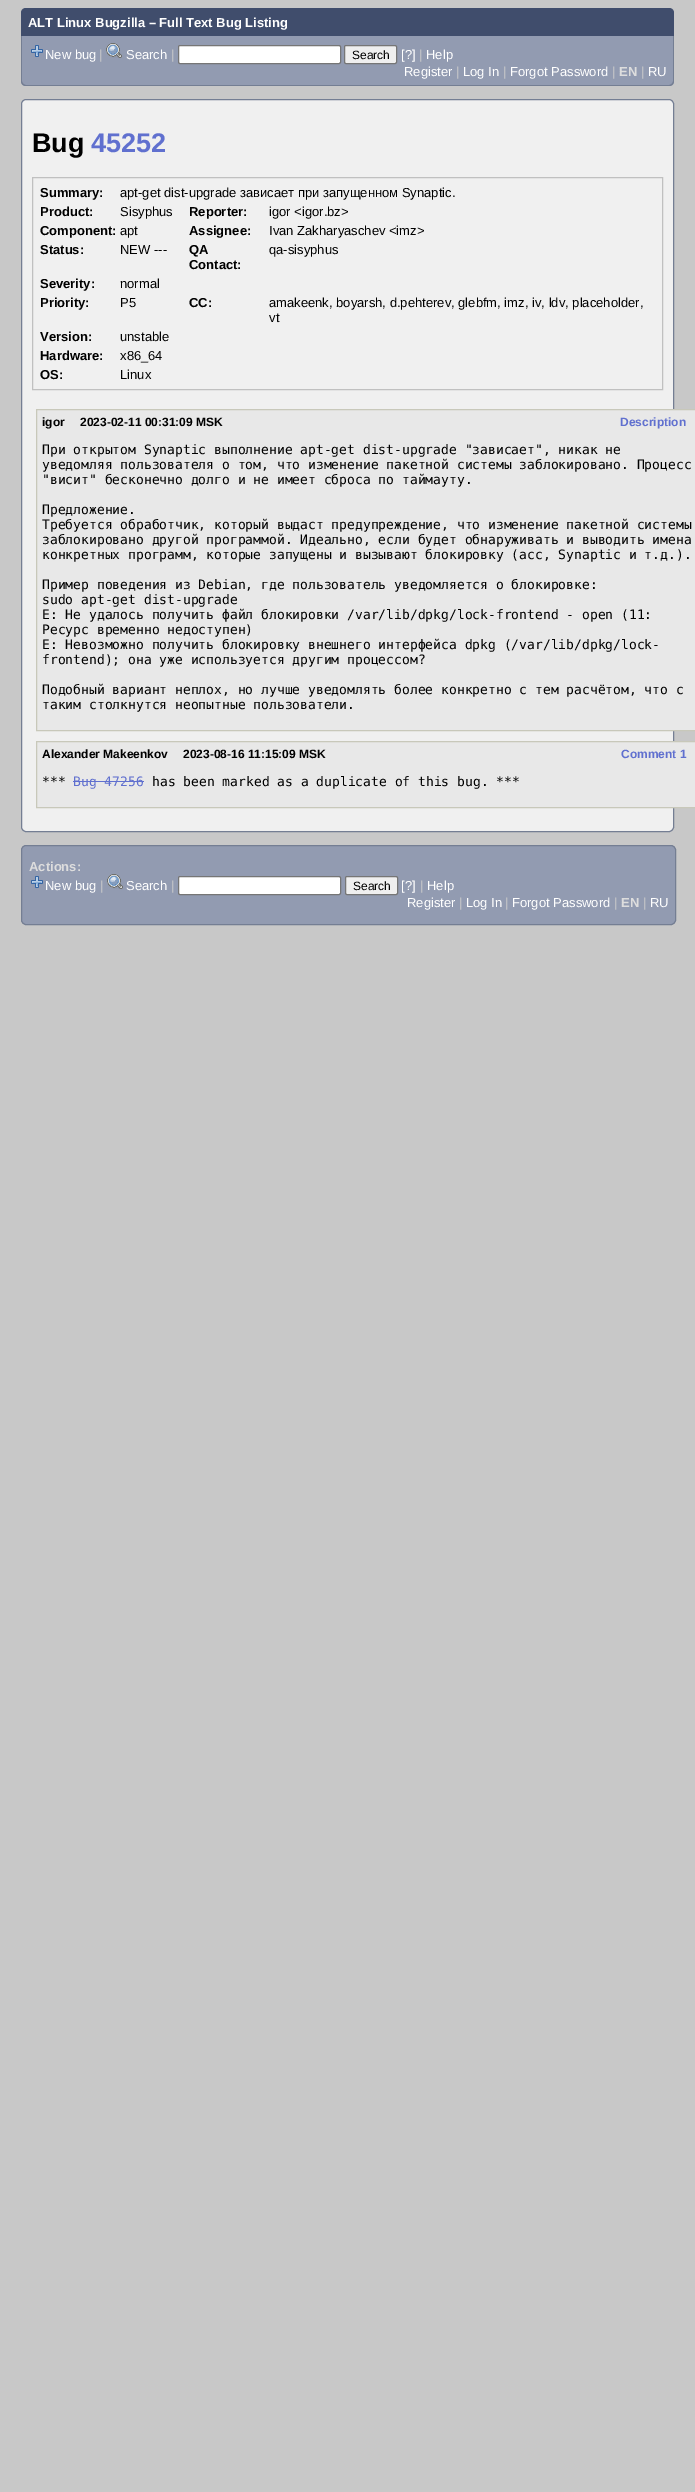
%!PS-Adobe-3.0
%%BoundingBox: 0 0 695 2492
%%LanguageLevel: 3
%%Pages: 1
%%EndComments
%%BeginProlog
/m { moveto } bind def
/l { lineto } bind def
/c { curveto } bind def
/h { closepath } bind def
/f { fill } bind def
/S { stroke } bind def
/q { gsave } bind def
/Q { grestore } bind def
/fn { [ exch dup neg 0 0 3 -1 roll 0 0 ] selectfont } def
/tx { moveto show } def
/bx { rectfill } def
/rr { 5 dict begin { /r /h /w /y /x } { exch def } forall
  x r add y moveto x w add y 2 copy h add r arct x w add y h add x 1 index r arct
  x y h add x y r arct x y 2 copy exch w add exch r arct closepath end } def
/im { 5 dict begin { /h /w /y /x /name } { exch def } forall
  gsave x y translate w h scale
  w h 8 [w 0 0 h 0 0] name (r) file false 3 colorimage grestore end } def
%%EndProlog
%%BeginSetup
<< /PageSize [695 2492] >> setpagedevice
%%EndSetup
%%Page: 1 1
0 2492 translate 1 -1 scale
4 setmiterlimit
0.784 setgray
0 0 695 2492 bx
0.251 0.302 0.424 setrgbcolor
26 8 m 669 8 l 672 8 674 10 674 13 c 674 36 l 21 36 l 21 13 l 21 10 23 8 26 8 c h f
/LiberationSans-Bold 13 fn
1 setgray
(ALT Linux Bugzilla – Full Text Bug Listing) 28 27 tx
0.573 0.608 0.694 setrgbcolor
21 36 m 674 36 l 674 81 l 674 84 672 86 669 86 c 26 86 l 23 86 21 84 21 81 c h f
0.455 0.494 0.576 setrgbcolor
21 36 m 674 36 l 674 81 l 674 84 672 86 669 86 c 26 86 l 23 86 21 84 21 81 c h 22 36 m 673 36 l 673 81 l 673 83 671 85 669 85 c 26 85 l 24 85 22 83 22 81 c h eofill
(image0.raw) 31 45 12 12 im
/LiberationSans-Regular 13 fn
1 setgray
(New bug) 45 59 tx
0.8 setgray
(|) 99 59 tx
(image1.raw) 106 43 16 15 im
1 setgray
(Search) 126 59 tx
0.8 setgray
(|) 171 59 tx
1 setgray
178.5 45.5 162 18 1.5 rr q f Q
0.463 setgray
S
0.937 setgray
344.5 45.5 52 18 1.5 rr q f Q
0.463 setgray
S
/LiberationSans-Regular 12 fn
0 setgray
(Search) 352 59 tx
/LiberationSans-Regular 13 fn
1 setgray
([?]) 401 59 tx
0.8 setgray
(|) 419 59 tx
1 setgray
(Help) 426 59 tx
(Register) 404 76 tx
0.8 setgray
(|) 456 76 tx
1 setgray
(Log In) 463 76 tx
0.8 setgray
(|) 503 76 tx
1 setgray
(Forgot Password) 510 76 tx
0.8 setgray
(|) 612 76 tx
/LiberationSans-Bold 13 fn
0.867 setgray
(EN) 619 76 tx
/LiberationSans-Regular 13 fn
0.8 setgray
(|) 641 76 tx
1 setgray
(RU) 648 76 tx
0.941 setgray
21.5 99.5 652 732 4.5 rr q f Q
0.455 0.494 0.576 setrgbcolor
S
/LiberationSans-Bold 27 fn
0 setgray
(Bug) 32 152 tx
0.376 0.439 0.812 setrgbcolor
(45252) 91 152 tx
0.753 setgray
32.5 177.5 630 212 rectstroke
/LiberationSans-Bold 13 fn
0 setgray
(Summary:) 40 197 tx
/LiberationSans-Regular 13 fn
(apt-get dist-upgrade зависает при запущенном Synaptic.) 120 197 tx
/LiberationSans-Bold 13 fn
(Product:) 40 216 tx
/LiberationSans-Regular 13 fn
(Sisyphus) 120 216 tx
/LiberationSans-Bold 13 fn
(Reporter:) 189 216 tx
/LiberationSans-Regular 13 fn
(igor <igor.bz>) 269 216 tx
/LiberationSans-Bold 13 fn
(Component:) 40 235 tx
/LiberationSans-Regular 13 fn
(apt) 120 235 tx
/LiberationSans-Bold 13 fn
(Assignee:) 189 235 tx
/LiberationSans-Regular 13 fn
(Ivan Zakharyaschev <imz>) 269 235 tx
/LiberationSans-Bold 13 fn
(Status:) 40 254 tx
/LiberationSans-Regular 13 fn
(NEW ---) 120 254 tx
/LiberationSans-Bold 13 fn
(QA) 189 254 tx
(Contact:) 189 269 tx
/LiberationSans-Regular 13 fn
(qa-sisyphus) 269 254 tx
/LiberationSans-Bold 13 fn
(Severity:) 40 288 tx
/LiberationSans-Regular 13 fn
(normal) 120 288 tx
/LiberationSans-Bold 13 fn
(Priority:) 40 307 tx
/LiberationSans-Regular 13 fn
(P5) 120 307 tx
/LiberationSans-Bold 13 fn
(CC:) 189 307 tx
/LiberationSans-Regular 13 fn
(amakeenk, boyarsh, d.pehterev, glebfm, imz, iv, ldv, placeholder,) 269 307 tx
(vt) 269 322 tx
/LiberationSans-Bold 13 fn
(Version:) 40 341 tx
/LiberationSans-Regular 13 fn
(unstable) 120 341 tx
/LiberationSans-Bold 13 fn
(Hardware:) 40 360 tx
/LiberationSans-Regular 13 fn
(x86_64) 120 360 tx
/LiberationSans-Bold 13 fn
(OS:) 40 379 tx
/LiberationSans-Regular 13 fn
(Linux) 120 379 tx
0.91 setgray
36.5 409.5 m 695.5 409.5 l 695.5 730.5 l 36.5 730.5 l h q f Q
0.784 0.784 0.729 setrgbcolor
S
/LiberationSans-Bold 12 fn
0 setgray
(igor) 42 426 tx
(2023-02-11 00:31:09 MSK) 80 426 tx
0.376 0.439 0.812 setrgbcolor
(Description) 620 426 tx
/DejaVuSansMono-Regular 13 fn
0 setgray
(При открытом Synaptic выполнение apt-get dist-upgrade "зависает", никак не) 42 454 tx
(уведомляя пользователя о том, что изменение пакетной системы заблокировано. Процесс) 42 469 tx
("висит" бесконечно долго и не имеет сброса по таймауту.) 42 484 tx
(Предложение.) 42 514 tx
(Требуется обработчик, который выдаст предупреждение, что изменение пакетной системы) 42 529 tx
(заблокировано другой программой. Идеально, если будет обнаруживать и выводить имена) 42 544 tx
(конкретных программ, которые запущены и вызывают блокировку \(acc, Synaptic и т.д.\).) 42 559 tx
(Пример поведения из Debian, где пользователь уведомляется о блокировке:) 42 589 tx
(sudo apt-get dist-upgrade) 42 604 tx
(E: Не удалось получить файл блокировки /var/lib/dpkg/lock-frontend - open \(11:) 42 619 tx
(Ресурс временно недоступен\)) 42 634 tx
(E: Невозможно получить блокировку внешнего интерфейса dpkg \(/var/lib/dpkg/lock-) 42 649 tx
(frontend\); она уже используется другим процессом?) 42 664 tx
(Подобный вариант неплох, но лучше уведомлять более конкретно с тем расчётом, что с) 42 694 tx
(таким столкнутся неопытные пользователи.) 42 709 tx
0.91 setgray
36.5 741.5 m 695.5 741.5 l 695.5 807.5 l 36.5 807.5 l h q f Q
0.784 0.784 0.729 setrgbcolor
S
/LiberationSans-Bold 12 fn
0 setgray
(Alexander Makeenkov) 42 758 tx
(2023-08-16 11:15:09 MSK) 183 758 tx
0.376 0.439 0.812 setrgbcolor
(Comment 1) 621 758 tx
/DejaVuSansMono-Regular 13 fn
0 setgray
(***) 42 786 tx
0.376 0.439 0.812 setrgbcolor
(Bug 47256) 73 786 tx
73 781 71 1 bx
0 setgray
(has been marked as a duplicate of this bug. ***) 152 786 tx
0.573 0.608 0.694 setrgbcolor
21.5 845.5 654 79 4.5 rr q f Q
0.455 0.494 0.576 setrgbcolor
S
/LiberationSans-Bold 13 fn
0.867 setgray
(Actions:) 29 871 tx
(image0.raw) 31 876 12 12 im
/LiberationSans-Regular 13 fn
1 setgray
(New bug) 45 890 tx
0.8 setgray
(|) 100 890 tx
(image1.raw) 107 874 16 15 im
1 setgray
(Search) 126 890 tx
0.8 setgray
(|) 171 890 tx
1 setgray
178.5 876.5 162 18 1.5 rr q f Q
0.463 setgray
S
0.937 setgray
345.5 876.5 52 18 1.5 rr q f Q
0.463 setgray
S
/LiberationSans-Regular 12 fn
0 setgray
(Search) 353 890 tx
/LiberationSans-Regular 13 fn
1 setgray
([?]) 401 890 tx
0.8 setgray
(|) 420 890 tx
1 setgray
(Help) 427 890 tx
(Register) 407 907 tx
0.8 setgray
(|) 459 907 tx
1 setgray
(Log In) 466 907 tx
0.8 setgray
(|) 505 907 tx
1 setgray
(Forgot Password) 512 907 tx
0.8 setgray
(|) 614 907 tx
/LiberationSans-Bold 13 fn
0.867 setgray
(EN) 621 907 tx
/LiberationSans-Regular 13 fn
0.8 setgray
(|) 643 907 tx
1 setgray
(RU) 650 907 tx
showpage
%%EOF
